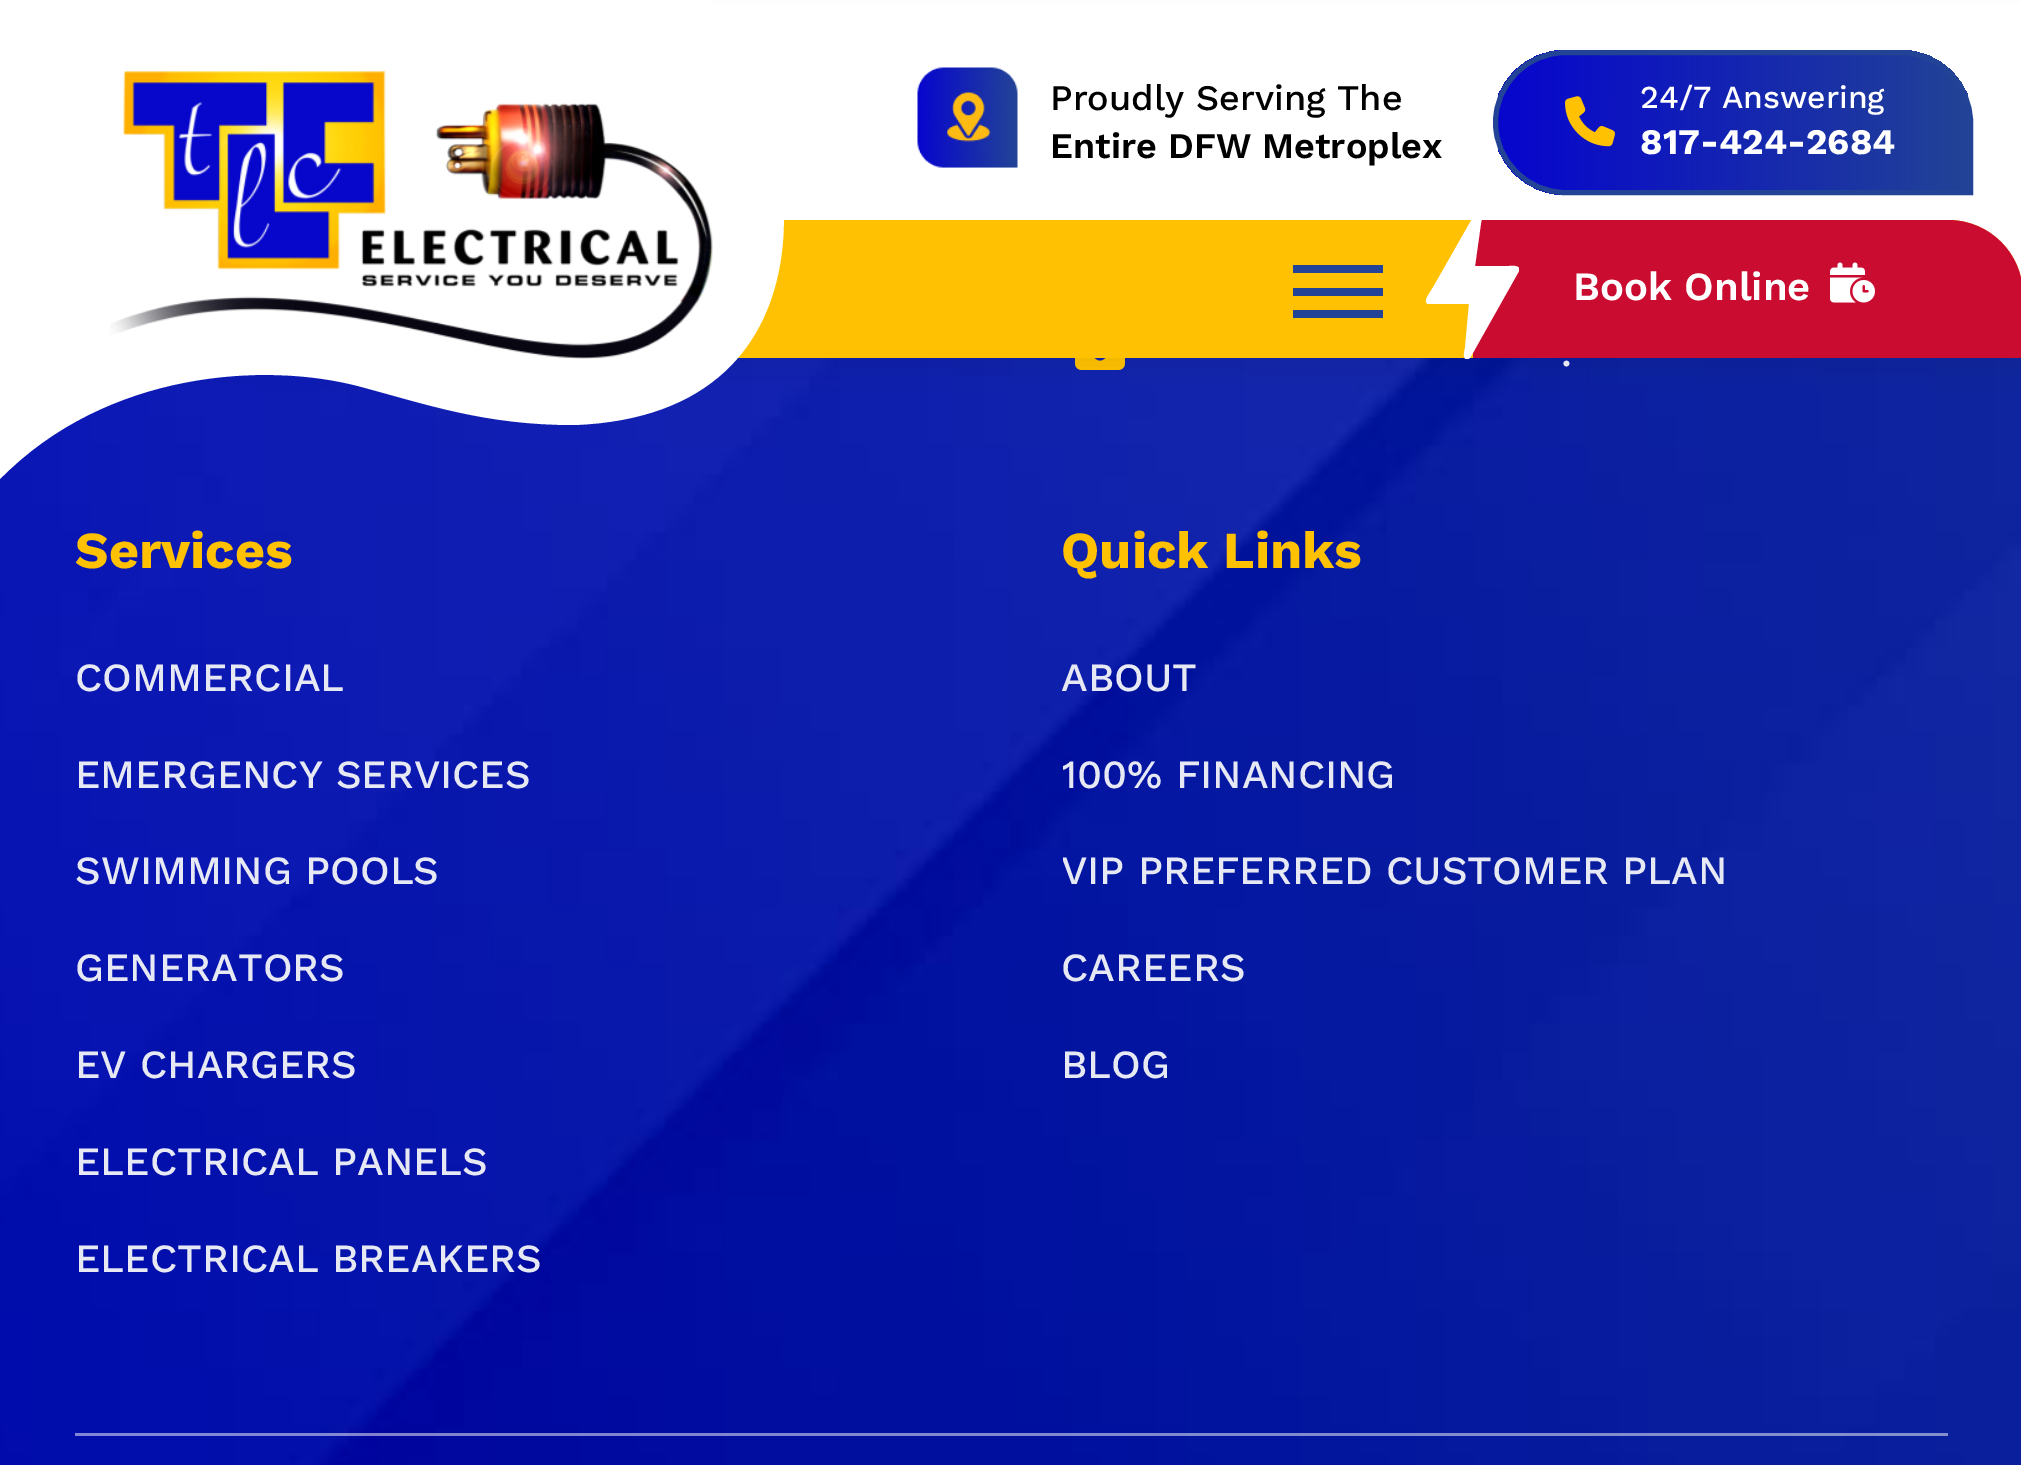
%!PS-Adobe-3.0
%%BoundingBox: 0 0 2021 1465
%%LanguageLevel: 3
%%Pages: 1
%%EndComments
%%BeginProlog
/m { moveto } bind def
/l { lineto } bind def
/c { curveto } bind def
/h { closepath } bind def
/f { fill } bind def
/S { stroke } bind def
/q { gsave } bind def
/Q { grestore } bind def
/w { setlinewidth } bind def
/fn { [ exch dup neg 0 0 3 -1 roll 0 0 ] selectfont } def
/tx { moveto show } def
/bx { rectfill } def
/al { dup .setfillconstantalpha .setstrokeconstantalpha } def
/rr { 5 dict begin { /r /h /w /y /x } { exch def } forall
  x r add y moveto x w add y 2 copy h add r arct x w add y h add x 1 index r arct
  x y h add x y r arct x y 2 copy exch w add exch r arct closepath end } def
/sh { 12 dict begin { /a /b /q /h /w /y /x } { exch def } forall gsave /was 0 def
  9 -2 -9 { dup b mul 4 div /e exch def 1 sub .425 mul 2.718 exch exp 1 add a .99 .min exch div /now exch def
    1 1 now sub 1 was sub div sub al /was now def
    w h .min e 2 mul add 0 gt { x e sub y e sub w e 2 mul add h e 2 mul add
      q e add b .6 mul add w h .min 2 div e add .min 0 .max rr fill } if } for grestore end } def
/im { 5 dict begin { /h /w /y /x /name } { exch def } forall
  gsave x y translate w h scale
  w h 8 [w 0 0 h 0 0] name (r) file false 3 colorimage grestore end } def
%%EndProlog
%%BeginSetup
<< /PageSize [2021 1465] /PageUsesTransparency true >> setpagedevice
%%EndSetup
%%Page: 1 1
0 .pushpdf14devicefilter
0 1465 translate 1 -1 scale
4 setmiterlimit
1 setgray
0 0 2021 1465 bx
(image4.raw) 0 358 2021 1107 im
(image5.raw) 1075 358 50 12 im
0 setgray
0 13 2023 357 0 12.5 0.05 sh
1 setgray
710 3 1311 275 bx
1 0.757 0.004 setrgbcolor
725 220 m 1948 220 l 1989.5 220 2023 253.5 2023 295 c 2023 358 l 725 358 l h f
1 setgray
574 425 m 848 415 808 123 710 0 c 0 0 l 0 479 l 107 370 266 362 358 386 c 426 404 484 425 574 425 c h f
(image0.raw) 110 70 603 289 im
(image1.raw) 917 67 101 101 im
/WorkSans-Medium 36 fn
0 setgray
(Proudly Serving The) 1050 110 tx
/WorkSans-SemiBold 36 fn
(Entire DFW Metroplex) 1050 158 tx
q
1565.5 50 m 1900.5 50 l 1940.5 50 1973 82.5 1973 122.5 c 1973 195 l 1565.5 195 l 1525.5 195 1493 162.5 1493 122.5 c 1493 82.5 1525.5 50 1565.5 50 c h clip newpath
q 1498 50 m 1968 50 l 1968 195 l 1498 195 l h clip newpath
<< /ShadingType 2 /ColorSpace /DeviceRGB /Coords [1968 122 1498 123] /Extend [true true] /Function << /FunctionType 3 /Domain [0 1] /Functions [<< /FunctionType 2 /Domain [0 1] /C0 [0.133 0.263 0.588] /C1 [0.027 0.027 0.8] /N 1 >> << /FunctionType 2 /Domain [0 1] /C0 [0.027 0.027 0.8] /C1 [0.027 0.027 0.8] /N 1 >>] /Bounds [0.97] /Encode [0 1 0 1] >> >> shfill Q
Q
0.133 0.263 0.588 setrgbcolor
5 w
1565.5 52.5 m 1900.5 52.5 l 1939 52.5 1970.5 84 1970.5 122.5 c 1970.5 192.5 l 1565.5 192.5 l 1527 192.5 1495.5 161 1495.5 122.5 c 1495.5 84 1527 52.5 1565.5 52.5 c h S
(image2.raw) 1565 96 50 51 im
/WorkSans-Medium 32 fn
1 setgray
(24/7 Answering) 1640 108 tx
/WorkSans-Bold 36 fn
(817-424-2684) 1640 154 tx
0.133 0.263 0.588 setrgbcolor
1293 265 90 8 bx
1293 288 90 8 bx
1293 310 90 8 bx
0.792 0.047 0.192 setrgbcolor
1473 220 m 1948 220 l 1989.5 220 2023 253.5 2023 295 c 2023 358 l 1473 358 l h f
1 setgray
1519 268 m 1517 265 1511 266 1509 266 c 1475 266 l 1481 223 l 1481 222 1485 209 1478 210 c 1476 212 l 1435 284 l 1430 293 1422 302 1428 304 c 1469 304 l 1465 348 l 1465 349 1462 358 1466 359 c 1468 359 l 1470 358 l 1519 271 l 1519 270 1519 269 1519 268 c h f
/WorkSans-SemiBold 40 fn
(Book Online) 1573 300 tx
(image3.raw) 1830 262 45 41 im
/WorkSans-Medium 40 fn
0.902 0.91 0.957 setrgbcolor
(.) 1561 366 tx
/WorkSans-Bold 52 fn
1 0.757 0.004 setrgbcolor
(Services) 75 568 tx
/WorkSans-Medium 40 fn
0.902 0.91 0.957 setrgbcolor
(COMMERCIAL) 75 691 tx
(EMERGENCY SERVICES) 75 788 tx
(SWIMMING POOLS) 75 884 tx
(GENERATORS) 75 981 tx
(EV CHARGERS) 75 1078 tx
(ELECTRICAL PANELS) 75 1175 tx
(ELECTRICAL BREAKERS) 75 1272 tx
/WorkSans-Bold 52 fn
1 0.757 0.004 setrgbcolor
(Quick Links) 1061 568 tx
/WorkSans-Medium 40 fn
0.902 0.91 0.957 setrgbcolor
(ABOUT) 1061 691 tx
q
1063 725 885 98 rectclip
(100% FINANCING) 1061 788 tx
Q
q
1063 823 885 97 rectclip
(VIP PREFERRED CUSTOMER PLAN) 1061 884 tx
Q
(CAREERS) 1061 981 tx
(BLOG) 1061 1078 tx
0.5 al
1 setgray
75 1433 1873 3 bx
.poppdf14devicefilter showpage
%%EOF
